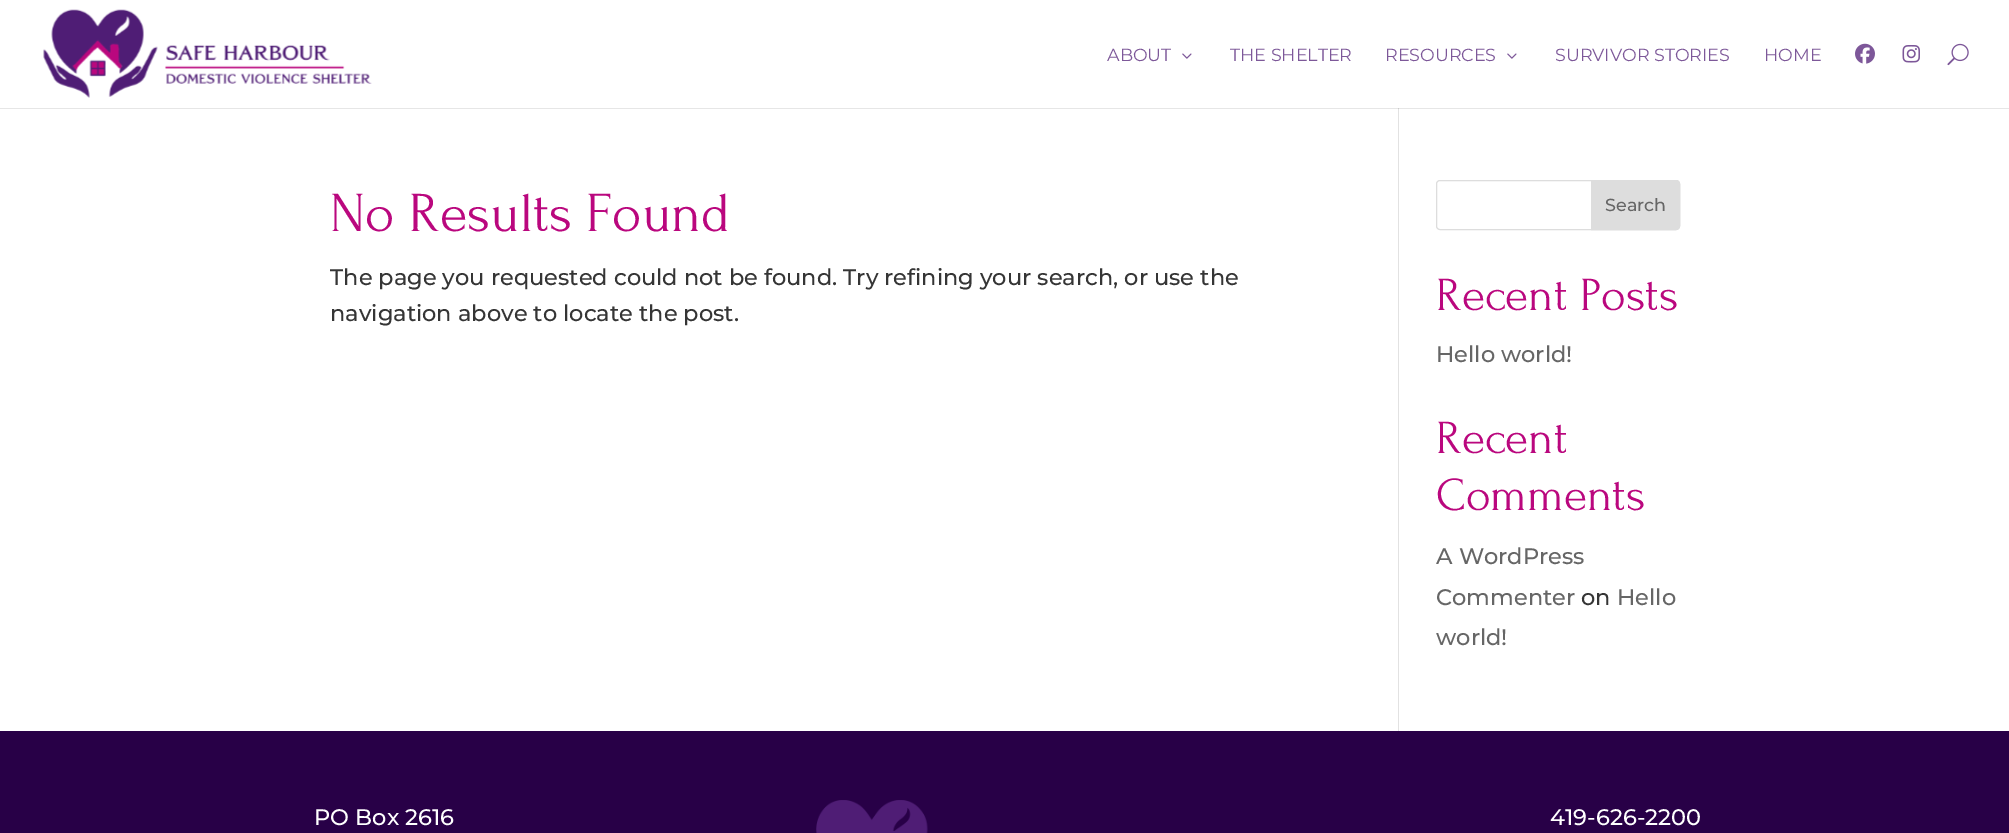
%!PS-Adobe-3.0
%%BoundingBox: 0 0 2009 833
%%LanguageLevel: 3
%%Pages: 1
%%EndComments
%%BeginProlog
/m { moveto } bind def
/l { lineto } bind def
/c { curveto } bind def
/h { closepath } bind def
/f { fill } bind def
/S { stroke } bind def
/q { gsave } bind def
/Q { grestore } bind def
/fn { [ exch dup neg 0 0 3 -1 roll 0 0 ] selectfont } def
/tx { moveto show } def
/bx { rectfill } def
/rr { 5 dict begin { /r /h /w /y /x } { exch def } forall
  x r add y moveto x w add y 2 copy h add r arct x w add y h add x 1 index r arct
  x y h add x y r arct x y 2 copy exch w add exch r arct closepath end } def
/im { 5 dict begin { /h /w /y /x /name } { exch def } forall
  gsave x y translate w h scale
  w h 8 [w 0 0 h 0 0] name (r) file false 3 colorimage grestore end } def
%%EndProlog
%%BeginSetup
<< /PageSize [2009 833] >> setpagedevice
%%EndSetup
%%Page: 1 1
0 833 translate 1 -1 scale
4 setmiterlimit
1 setgray
0 0 2009 833 bx
0.902 setgray
0 108 2009 1 bx
(image0.raw) 43 9 329 89 im
/Montserrat-Regular 17.5 fn
0.49 0.345 0.6 setrgbcolor
(ABOUT) 1107 61 tx
(image1.raw) 1182 53 10 6 im
(THE SHELTER) 1230 61 tx
(RESOURCES) 1385 61 tx
(image1.raw) 1507 53 10 6 im
(SURVIVOR STORIES) 1555 61 tx
(HOME) 1764 61 tx
(image2.raw) 1855 43 20 21 im
(image3.raw) 1902 45 18 18 im
(image4.raw) 1947 43 22 23 im
0.886 setgray
1398 108 1 623 bx
0.796 setgray
1398 108 1 1 bx
/Forum-Regular 56.25 fn
0.729 0.027 0.494 setrgbcolor
(No Results Found) 330 231 tx
/Montserrat-Medium 22.5 fn
0.208 setgray
(The page you requested could not be found. Try refining your search, or use the) 330 285 tx
(navigation above to locate the post.) 330 321 tx
0.867 setgray
1436.5 180.5 243 49 3.5 rr S
1591.5 180.5 m 1676 180.5 l 1678 180.5 1679.5 182 1679.5 184 c 1679.5 226 l 1679.5 228 1678 229.5 1676 229.5 c 1591.5 229.5 l h q f Q
S
/Montserrat-Medium 17.5 fn
0.4 setgray
(Search) 1605 211 tx
/Forum-Regular 47.5 fn
0.729 0.027 0.494 setrgbcolor
(Recent Posts) 1436 310 tx
/Montserrat-Medium 22.5 fn
0.4 setgray
(Hello world!) 1436 362 tx
/Forum-Regular 47.5 fn
0.729 0.027 0.494 setrgbcolor
(Recent) 1436 453 tx
(Comments) 1436 510 tx
/Montserrat-Medium 22.5 fn
0.4 setgray
(A WordPress) 1436 564 tx
(Commenter) 1436 605 tx
0.208 setgray
(on) 1581 605 tx
0.4 setgray
(Hello) 1617 605 tx
(world!) 1436 645 tx
0.157 0 0.278 setrgbcolor
0 731 2009 102 bx
1 setgray
(PO Box 2616) 314 825 tx
(image5.raw) 816 800 112 33 im
(419-626-2200) 1550 825 tx
showpage
%%EOF
